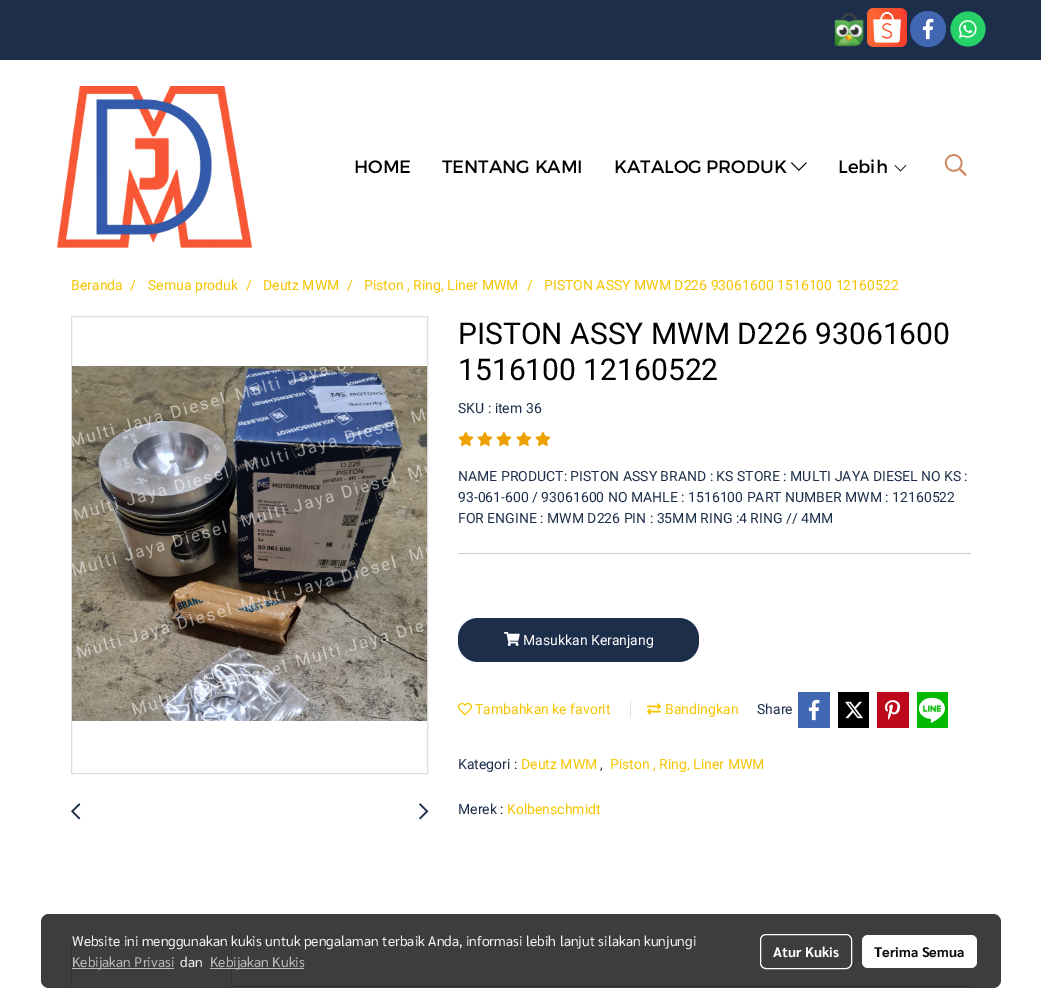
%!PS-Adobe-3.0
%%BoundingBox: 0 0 1041 996
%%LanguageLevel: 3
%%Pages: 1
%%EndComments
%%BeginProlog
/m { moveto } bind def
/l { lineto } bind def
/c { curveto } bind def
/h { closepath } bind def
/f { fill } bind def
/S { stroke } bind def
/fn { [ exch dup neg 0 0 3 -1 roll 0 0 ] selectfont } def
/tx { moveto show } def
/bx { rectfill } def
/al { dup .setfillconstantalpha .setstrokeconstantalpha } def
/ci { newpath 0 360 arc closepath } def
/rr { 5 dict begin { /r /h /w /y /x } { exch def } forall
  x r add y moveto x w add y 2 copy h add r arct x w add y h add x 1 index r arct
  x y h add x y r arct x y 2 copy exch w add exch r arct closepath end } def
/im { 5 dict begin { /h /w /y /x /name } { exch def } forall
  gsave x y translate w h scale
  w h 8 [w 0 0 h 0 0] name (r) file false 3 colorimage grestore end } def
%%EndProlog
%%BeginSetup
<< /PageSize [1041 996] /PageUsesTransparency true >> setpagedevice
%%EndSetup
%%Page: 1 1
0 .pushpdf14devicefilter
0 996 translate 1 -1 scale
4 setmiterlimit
1 setgray
0 0 1041 996 bx
0.11 0.18 0.29 setrgbcolor
0 0 1041 60 bx
(image0.raw) 834 12 30 35 im
(image1.raw) 867 8 40 39 im
0.259 0.404 0.698 setrgbcolor
928 29 18 ci f
(image2.raw) 922 18 12 22 im
0.149 0.824 0.404 setrgbcolor
968 11.5 m 958.5 11.5 950.5 19.5 950.5 29 c 950.5 38.5 958.5 46.5 968 46.5 c 977.5 46.5 985.5 38.5 985.5 29 c 985.5 19.5 977.5 11.5 968 11.5 c h f
(image3.raw) 958 20 19 18 im
(image4.raw) 56 86 196 162 im
/Montserrat-Regular 18 fn
0 setgray
(HOME) 354 173 tx
(TENTANG KAMI) 442 173 tx
(KATALOG PRODUK) 614 173 tx
(image5.raw) 791 162 16 9 im
(Lebih) 838 173 tx
(image6.raw) 894 165 13 7 im
(image7.raw) 944 154 23 22 im
/Roboto-Regular 14 fn
0.965 0.769 0 setrgbcolor
(Beranda) 71 290 tx
(/) 130 290 tx
(Semua produk) 148 290 tx
(/) 246 290 tx
(Deutz MWM) 263 290 tx
(/) 347 290 tx
(Piston , Ring, Liner MWM) 364 290 tx
(/) 527 290 tx
(PISTON ASSY MWM D226 93061600 1516100 12160522) 544 290 tx
0.867 setgray
71.5 316.5 356 457 rectstroke
(image8.raw) 72 366 355 355 im
(image9.raw) 71 803 10 17 im
(image10.raw) 419 803 10 17 im
/Roboto-Regular 30 fn
0 setgray
(PISTON ASSY MWM D226 93061600) 458 344 tx
(1516100 12160522) 458 380 tx
/Roboto-Regular 14 fn
0.11 0.18 0.29 setrgbcolor
(SKU : item 36) 458 413 tx
(image11.raw) 458 432 16 14 im
(image11.raw) 477 432 16 14 im
(image11.raw) 496 432 16 14 im
(image11.raw) 516 432 16 14 im
(image11.raw) 535 432 16 14 im
(NAME PRODUCT: PISTON ASSY BRAND : KS STORE : MULTI JAYA DIESEL NO KS :) 458 481 tx
(93-061-600 / 93061600 NO MAHLE : 1516100 PART NUMBER MWM : 12160522) 458 502 tx
(FOR ENGINE : MWM D226 PIN : 35MM RING :4 RING // 4MM) 458 523 tx
0.8 setgray
458 553 513 1 bx
0.11 0.18 0.29 setrgbcolor
458 618 241 44 20 rr f
(image12.raw) 504 632 16 14 im
1 setgray
(Masukkan Keranjang) 523 645 tx
(image13.raw) 458 702 14 14 im
0.965 0.769 0 setrgbcolor
(Tambahkan ke favorit) 475 714 tx
0.871 setgray
630 701 1 16 bx
(image14.raw) 647 703 14 12 im
0.965 0.769 0 setrgbcolor
(Bandingkan) 665 714 tx
0.11 0.18 0.29 setrgbcolor
(Share) 757 714 tx
0.259 0.404 0.698 setrgbcolor
798 692 32 36 bx
(image2.raw) 808 699 12 22 im
0 setgray
838 692 31 36 bx
(image15.raw) 845 701 18 18 im
0.741 0.031 0.11 setrgbcolor
877 692 32 36 bx
(image16.raw) 884 700 17 20 im
0 0.722 0 setrgbcolor
917 692 31 36 bx
(image17.raw) 918 697 27 26 im
0.11 0.18 0.29 setrgbcolor
(Kategori :) 458 769 tx
0.965 0.769 0 setrgbcolor
(Deutz MWM) 521 769 tx
0.11 0.18 0.29 setrgbcolor
(,) 600 769 tx
0.965 0.769 0 setrgbcolor
(Piston , Ring, Liner MWM) 610 769 tx
0.11 0.18 0.29 setrgbcolor
(Merek :) 458 814 tx
0.965 0.769 0 setrgbcolor
(Kolbenschmidt) 507 814 tx
0.8 setgray
75 942 m 228 942 l 230 942 232 944 232 946 c 232 987 l 71 987 l 71 946 l 71 944 73 942 75 942 c h 75 943 m 228 943 l 230 943 231 944 231 946 c 231 987 l 72 987 l 72 946 l 72 944 73 943 75 943 c h eofill
232 986 739 1 bx
0.76 al
0 setgray
41 914 960 74 8 rr f
/Sarabun-Regular 14 fn
1 al
0.961 setgray
(Website ini menggunakan kukis untuk pengalaman terbaik Anda, informasi lebih lanjut silakan kunjungi) 72 946 tx
0.95 al
0.761 setgray
72 968 102 1 bx
1 al
0.733 setgray
(Kebijakan Privasi) 72 967 tx
0.961 setgray
(dan) 180 967 tx
0.95 al
0.761 setgray
210 968 94 1 bx
1 al
0.733 setgray
(Kebijakan Kukis) 210 967 tx
1 setgray
760.5 934.5 91 34 5.5 rr S
/Sarabun-Bold 14 fn
(Atur Kukis) 773 957 tx
862 935 115 33 6 rr f
0.051 setgray
(Terima Semua) 874 957 tx
.poppdf14devicefilter showpage
%%EOF
